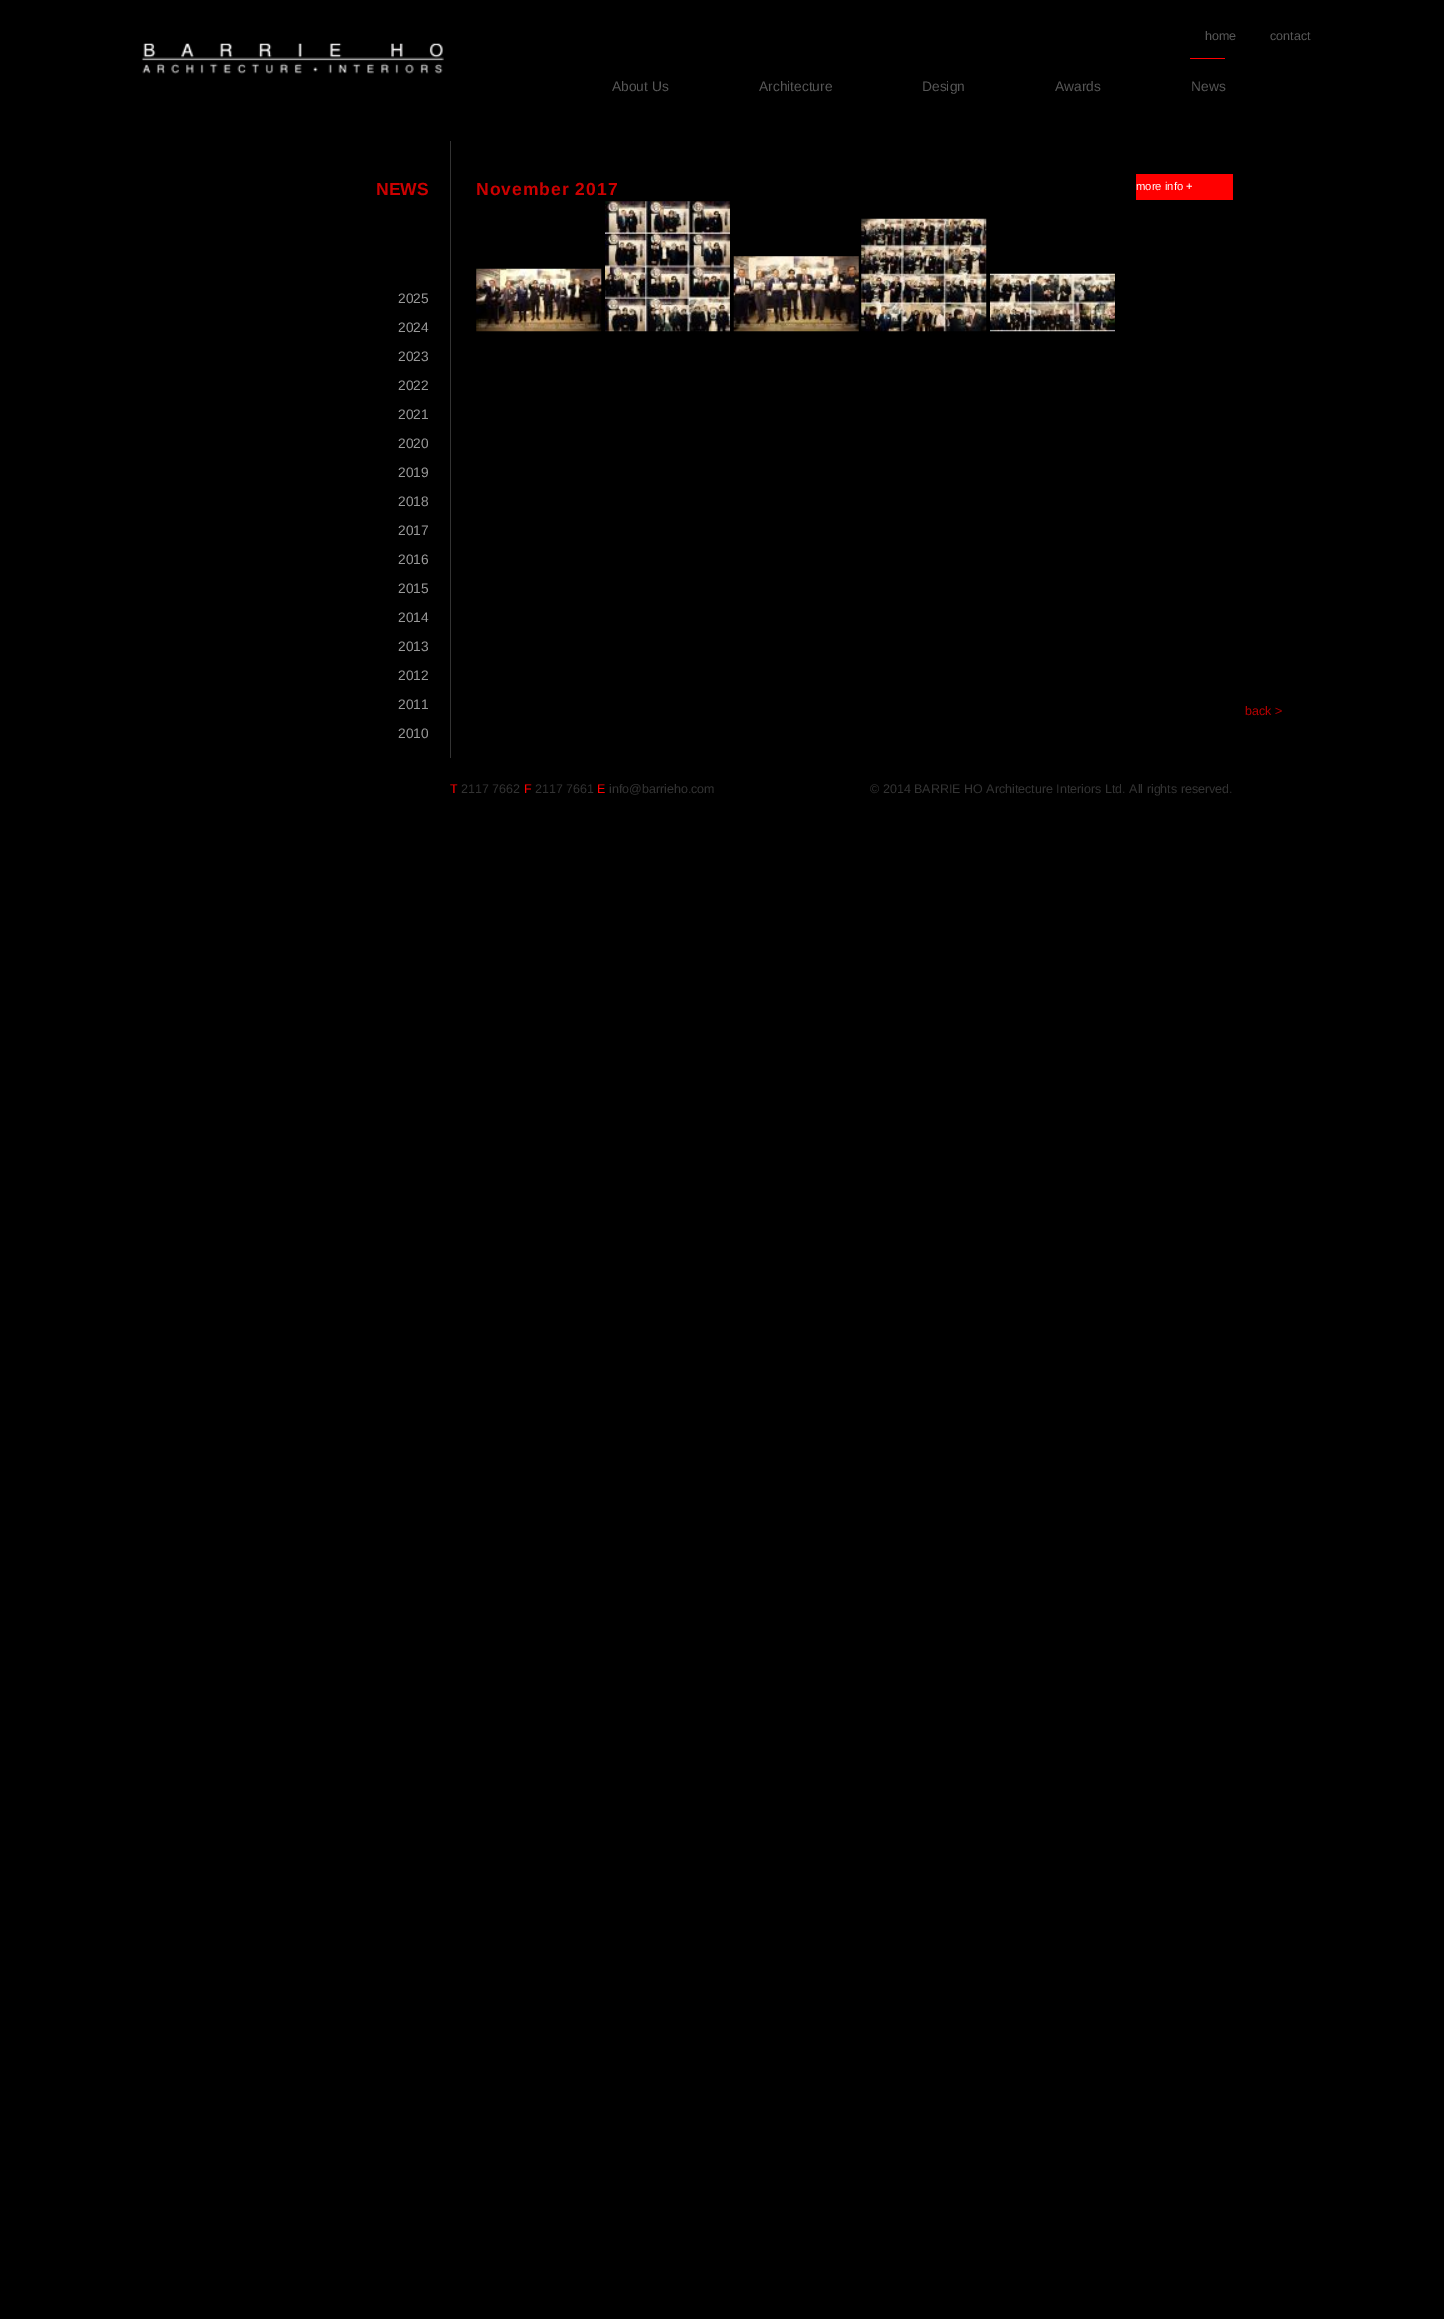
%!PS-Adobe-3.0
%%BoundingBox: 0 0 1444 2319
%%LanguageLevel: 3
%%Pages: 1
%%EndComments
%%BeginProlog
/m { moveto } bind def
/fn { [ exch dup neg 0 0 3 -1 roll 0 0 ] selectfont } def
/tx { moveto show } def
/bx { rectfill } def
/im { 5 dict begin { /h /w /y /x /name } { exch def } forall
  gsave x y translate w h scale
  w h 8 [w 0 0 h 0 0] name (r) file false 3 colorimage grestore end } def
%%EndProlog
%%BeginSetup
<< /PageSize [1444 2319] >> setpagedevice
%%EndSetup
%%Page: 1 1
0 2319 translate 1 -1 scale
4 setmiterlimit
0 setgray
0 0 1444 2319 bx
/LiberationSans-Regular 12.5 fn
0.341 setgray
(home) 1205 40 tx
(contact) 1270 40 tx
(image0.raw) 141 43 303 31 im
/LiberationSans-Regular 13.75 fn
(About Us) 612 91 tx
(Architecture) 759 91 tx
(Design) 922 91 tx
(Awards) 1055 91 tx
1 0 0 setrgbcolor
1190 58 35 1 bx
0.341 setgray
(News) 1191 91 tx
/LiberationSans-Bold 17.5 fn
0.8 0 0 setrgbcolor
(NEWS) 376 195 tx
/LiberationSans-Regular 13.75 fn
0.6 setgray
(2025) 398 303 tx
(2024) 398 332 tx
(2023) 398 361 tx
(2022) 398 390 tx
(2021) 398 419 tx
(2020) 398 448 tx
(2019) 398 477 tx
(2018) 398 506 tx
(2017) 398 535 tx
(2016) 398 564 tx
(2015) 398 593 tx
(2014) 398 622 tx
(2013) 398 651 tx
(2012) 398 680 tx
(2011) 398 709 tx
(2010) 398 738 tx
0.2 setgray
450 141 1 617 bx
/LiberationSans-Bold 17.5 fn
0.8 0 0 setrgbcolor
476 195 m 1 0 (November 2017) ashow
(image1.raw) 476 268 126 64 im
(image2.raw) 605 201 125 131 im
(image3.raw) 733 256 126 76 im
(image4.raw) 861 218 126 114 im
(image5.raw) 990 273 125 59 im
1 0 0 setrgbcolor
1136 174 97 26 bx
/LiberationSans-Regular 11.25 fn
1 setgray
(more info +) 1136 190 tx
/LiberationSans-Regular 12.5 fn
0.702 0 0 setrgbcolor
(back >) 1245 715 tx
1 0 0 setrgbcolor
(T) 450 793 tx
0.2 setgray
(2117 7662) 461 793 tx
1 0 0 setrgbcolor
(F) 524 793 tx
0.2 setgray
(2117 7661) 535 793 tx
1 0 0 setrgbcolor
(E) 597 793 tx
0.2 setgray
(info@barrieho.com) 609 793 tx
(© 2014 BARRIE HO Architecture Interiors Ltd. All rights reserved.) 870 793 tx
showpage
%%EOF
